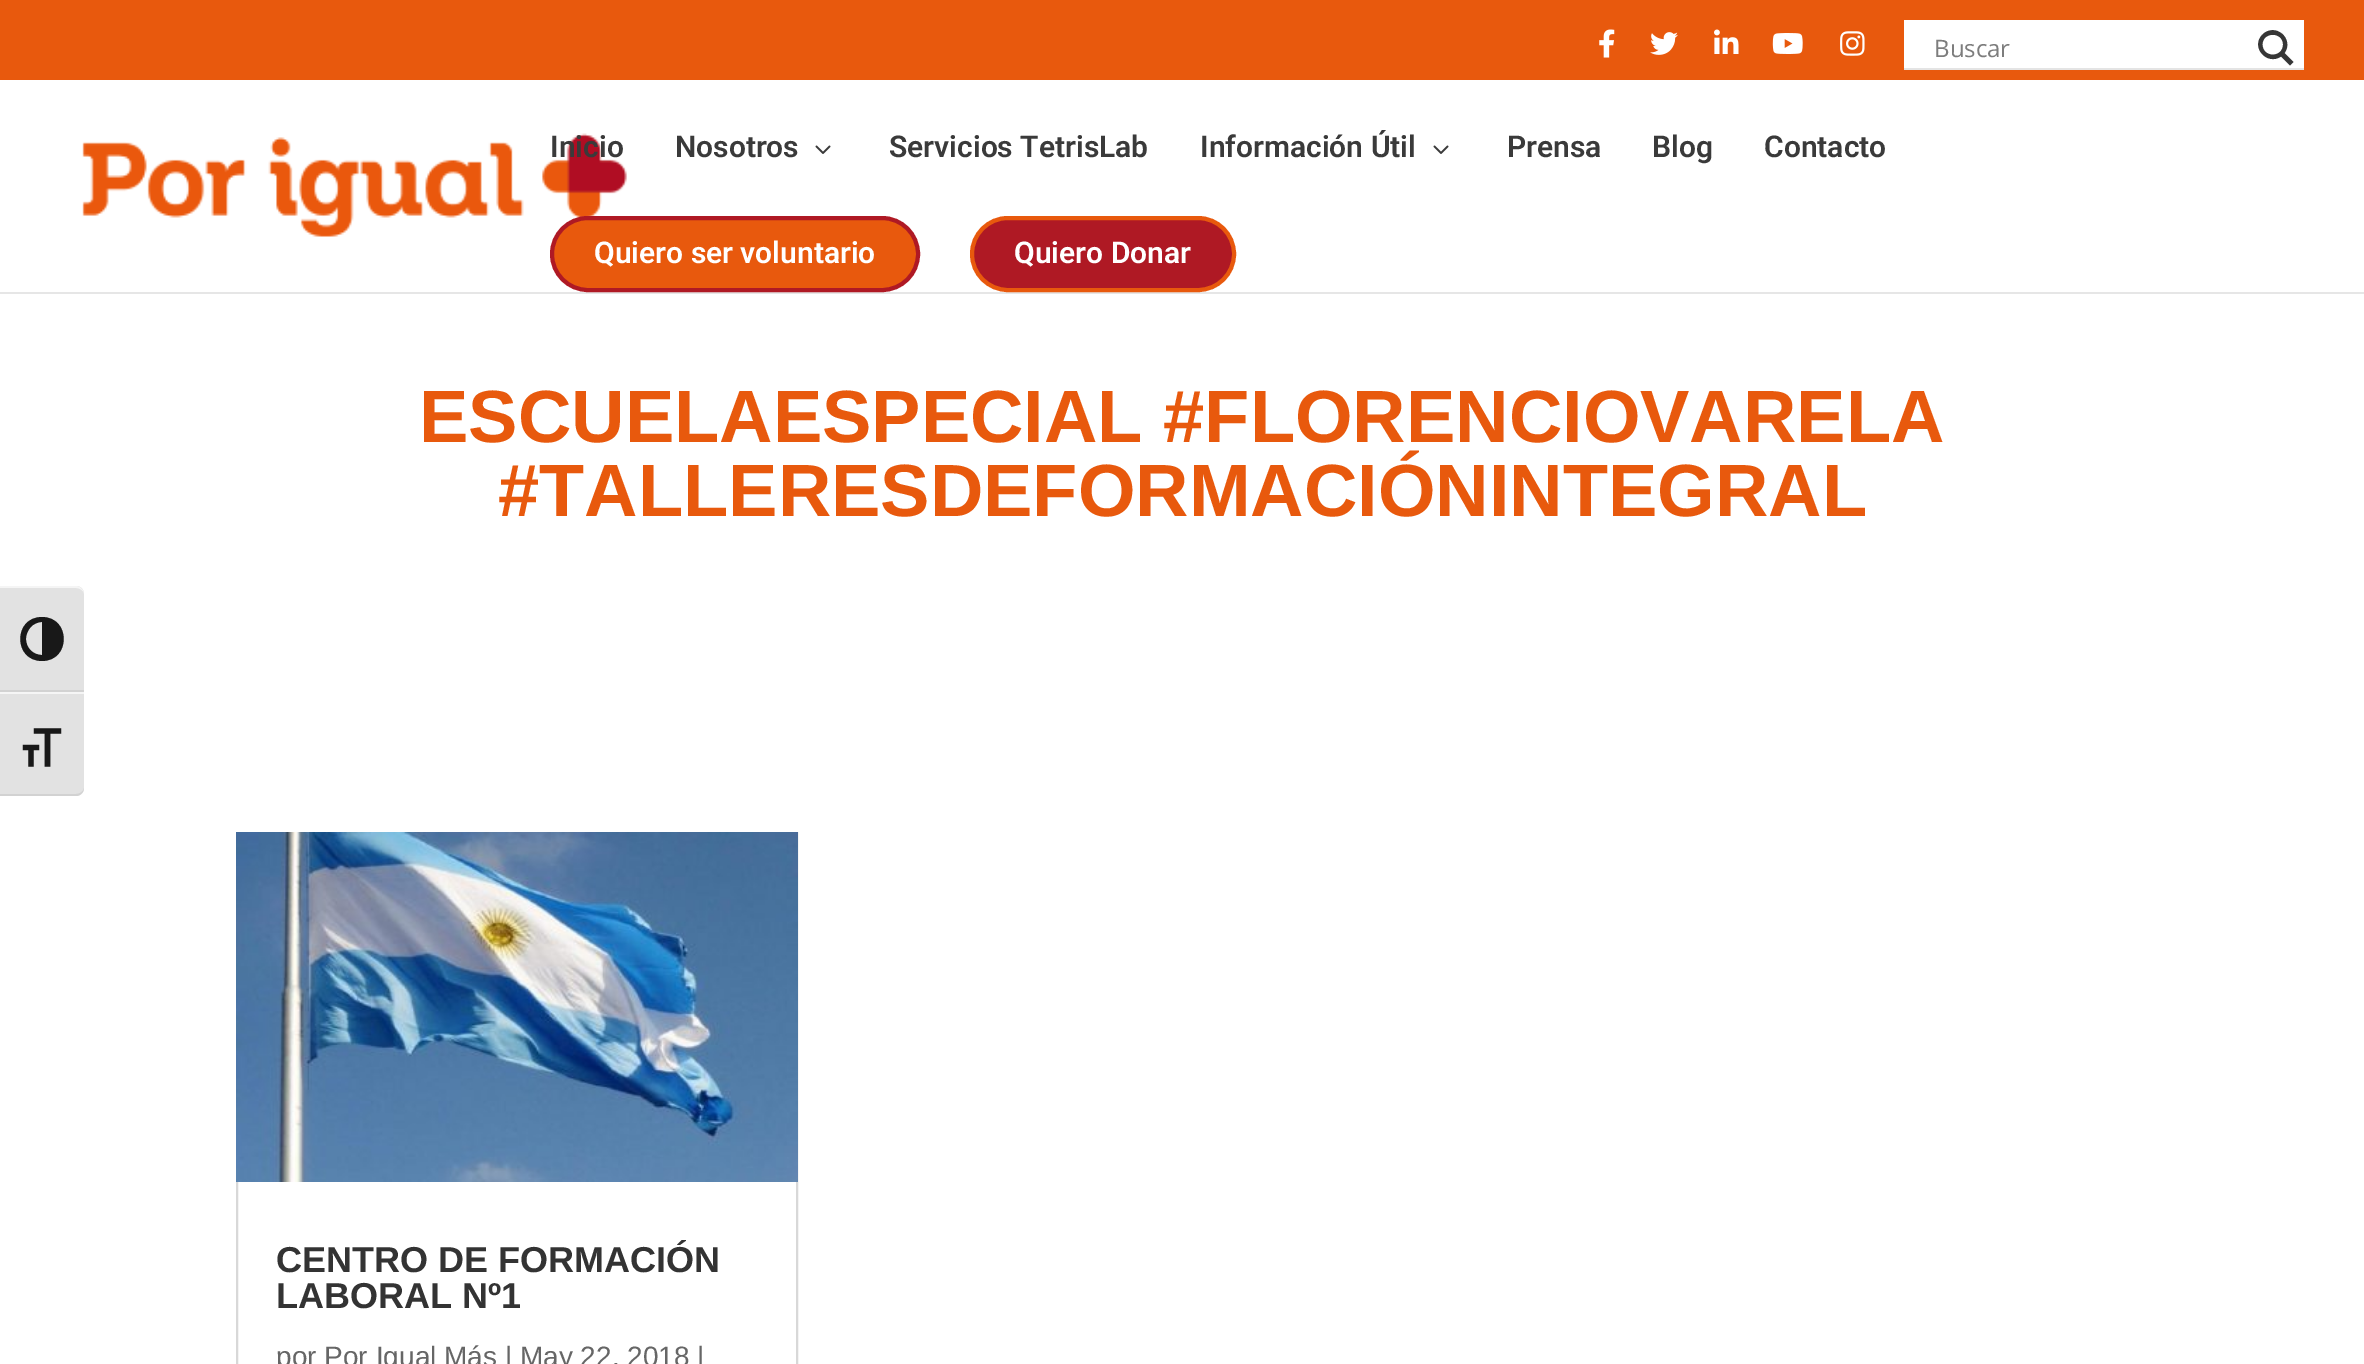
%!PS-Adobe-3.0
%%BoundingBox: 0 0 2364 1364
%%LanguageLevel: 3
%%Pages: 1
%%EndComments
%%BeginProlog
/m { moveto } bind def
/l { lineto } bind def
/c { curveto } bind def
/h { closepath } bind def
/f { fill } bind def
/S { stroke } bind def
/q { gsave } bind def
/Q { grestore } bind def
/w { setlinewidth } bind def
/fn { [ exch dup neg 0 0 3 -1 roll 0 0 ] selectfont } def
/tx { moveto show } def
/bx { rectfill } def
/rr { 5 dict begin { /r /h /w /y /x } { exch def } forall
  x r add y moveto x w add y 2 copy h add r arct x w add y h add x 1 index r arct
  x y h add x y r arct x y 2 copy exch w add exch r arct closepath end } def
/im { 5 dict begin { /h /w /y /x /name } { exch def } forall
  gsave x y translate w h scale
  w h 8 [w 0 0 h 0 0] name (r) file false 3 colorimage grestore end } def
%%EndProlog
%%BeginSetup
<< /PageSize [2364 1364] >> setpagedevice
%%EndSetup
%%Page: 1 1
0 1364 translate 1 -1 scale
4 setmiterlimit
1 setgray
0 0 2364 1364 bx
0.886 setgray
0 586 m 76 586 l 80.5 586 84 589.5 84 594 c 84 692 l 0 692 l h f
0.961 setgray
0 586 m 0 588 l 76 588 l 80 588 84 591 84 594 c 84 590 80 586 76 586 c h f
0.824 setgray
0 690 84 2 bx
0.094 setgray
42 617 m 13 617 13 661 42 661 c 71 661 71 617 42 617 c h 26 639 m 26 630 33 622 42 622 c 42 655 l 33 655 26 648 26 639 c h f
0.886 setgray
0 692 m 84 692 l 84 788 l 84 792.5 80.5 796 76 796 c 0 796 l h f
0.961 setgray
0 692 84 2 bx
0.824 setgray
0 794 m 0 796 l 76 796 l 80 796 84 792 84 788 c 84 791 80 794 76 794 c h f
(image0.raw) 22 728 40 39 im
0.91 0.349 0.051 setrgbcolor
0 0 2364 80 bx
(image1.raw) 1599 29 16 29 im
(image2.raw) 1650 32 28 23 im
(image3.raw) 1714 29 25 25 im
(image4.raw) 1772 33 31 21 im
(image5.raw) 1840 31 25 25 im
0.894 setgray
1904 68 400 2 bx
1 setgray
1904 20 400 48 bx
/OpenSans-Regular 24 fn
0.49 setgray
(Buscar) 1934 57 tx
0.212 setgray
2293.5 62 m 2284.5 53 l 2294.5 39 2275.5 22 2262.5 34.5 c 2250 47 2267 66 2281 56.5 c 2290 65.5 l h 2262.5 44.5 m 2262.5 31.5 2283 31.5 2283 44.5 c 2283 58 2262.5 58 2262.5 44.5 c h f
0.902 setgray
0 292 2364 2 bx
(image6.raw) 82 133 545 104 im
/Roboto-SemiBold 30 fn
0.227 setgray
(Inicio) 550 157 tx
(Nosotros) 675 157 tx
(image7.raw) 815 145 16 9 im
(Servicios TetrisLab) 889 157 tx
(Información Útil) 1200 157 tx
(image7.raw) 1433 145 16 9 im
(Prensa) 1507 157 tx
(Blog) 1652 157 tx
(Contacto) 1764 157 tx
0.91 0.349 0.051 setrgbcolor
552 218 366 72 36 rr q f Q
0.686 0.098 0.141 setrgbcolor
4 w
S
1 setgray
(Quiero ser voluntario) 594 263 tx
0.686 0.098 0.141 setrgbcolor
972 218 262 72 36 rr q f Q
0.91 0.349 0.051 setrgbcolor
S
1 setgray
(Quiero Donar) 1014 263 tx
/LiberationSans-Bold 74 fn
0.91 0.349 0.051 setrgbcolor
(ESCUELAESPECIAL #FLORENCIOVARELA) 419 442 tx
(#TALLERESDEFORMACIÓNINTEGRAL) 498 516 tx
0.847 setgray
2 w
237 833 560 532 rectstroke
(image8.raw) 236 832 562 350 im
/LiberationSans-Bold 36 fn
0.2 setgray
(CENTRO DE FORMACIÓN) 276 1272 tx
(LABORAL Nº1) 276 1308 tx
/LiberationSans-Regular 28 fn
0.4 setgray
(por Por Igual Más | May 22, 2018 |) 276 1366 tx
showpage
%%EOF
